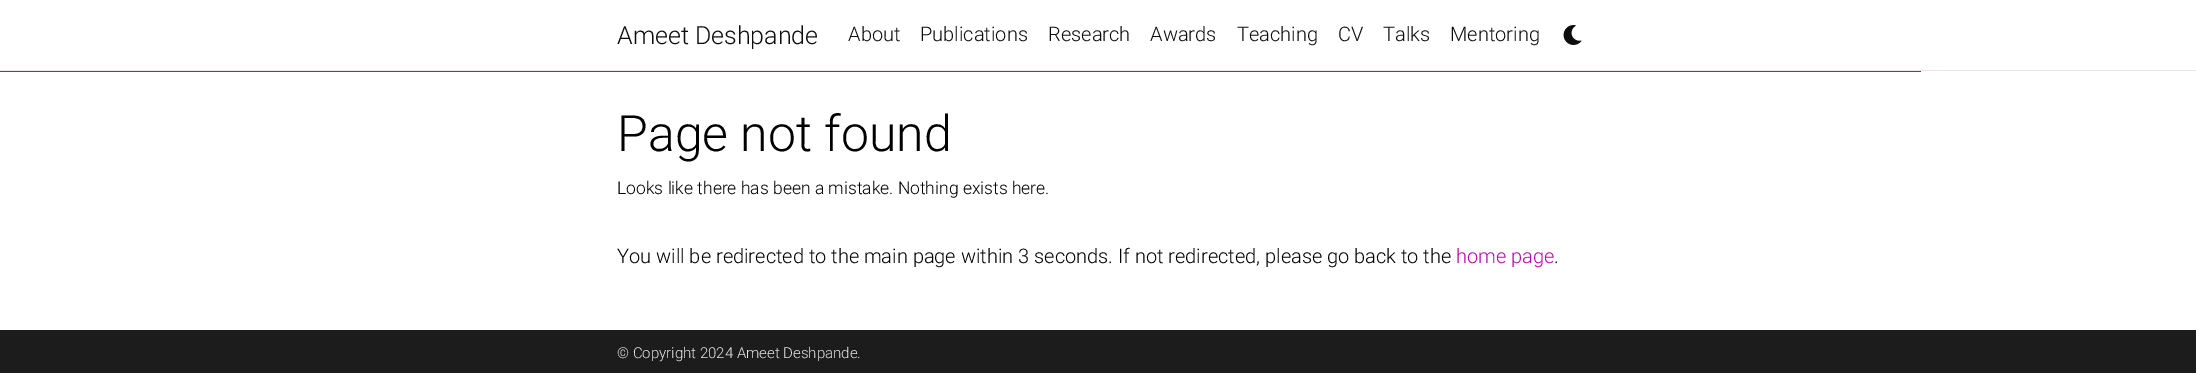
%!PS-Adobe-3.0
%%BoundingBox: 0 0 2196 373
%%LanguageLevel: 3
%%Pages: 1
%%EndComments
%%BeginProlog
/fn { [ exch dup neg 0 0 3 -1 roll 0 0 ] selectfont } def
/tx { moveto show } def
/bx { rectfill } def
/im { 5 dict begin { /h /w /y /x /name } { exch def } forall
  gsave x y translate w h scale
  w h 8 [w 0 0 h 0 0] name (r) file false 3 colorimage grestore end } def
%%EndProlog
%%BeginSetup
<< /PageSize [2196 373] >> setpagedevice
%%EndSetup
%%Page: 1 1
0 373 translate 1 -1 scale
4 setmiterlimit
1 setgray
0 0 2196 373 bx
0.906 setgray
0 70 2196 1 bx
/Roboto-Light 25 fn
0.051 setgray
(Ameet Deshpande) 617 44 tx
/Roboto-Light 20 fn
(About) 848 41 tx
(Publications) 920 41 tx
(Research) 1048 41 tx
(Awards) 1150 41 tx
(Teaching) 1237 41 tx
(CV) 1338 41 tx
(Talks) 1383 41 tx
(Mentoring) 1450 41 tx
(image0.raw) 1563 25 19 20 im
0.71 0.035 0.675 setrgbcolor
0 71 1921 1 bx
/Roboto-Light 50 fn
0 setgray
(Page not found) 617 151 tx
/Roboto-Light 17.5 fn
(Looks like there has been a mistake. Nothing exists here.) 617 194 tx
/Roboto-Light 20 fn
(You will be redirected to the main page within 3 seconds. If not redirected, please go back to the) 617 263 tx
0.71 0.035 0.675 setrgbcolor
(home page) 1456 263 tx
0 setgray
(.) 1554 263 tx
0.11 0.11 0.114 setrgbcolor
0 330 2196 43 bx
/Roboto-Light 15 fn
0.91 setgray
(© Copyright 2024 Ameet Deshpande.) 617 358 tx
showpage
%%EOF
